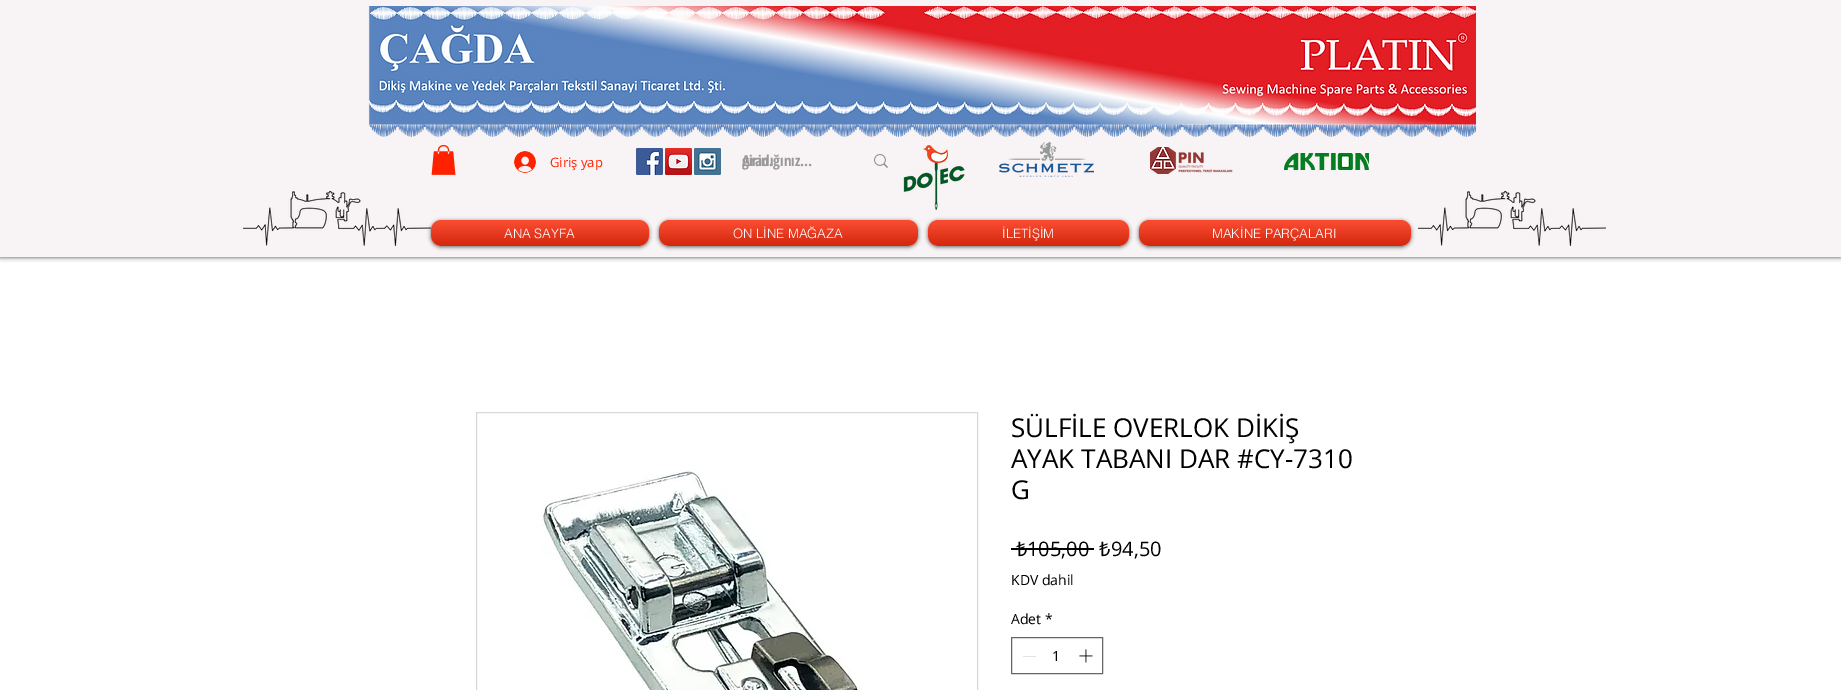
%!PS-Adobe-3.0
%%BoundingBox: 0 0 1841 690
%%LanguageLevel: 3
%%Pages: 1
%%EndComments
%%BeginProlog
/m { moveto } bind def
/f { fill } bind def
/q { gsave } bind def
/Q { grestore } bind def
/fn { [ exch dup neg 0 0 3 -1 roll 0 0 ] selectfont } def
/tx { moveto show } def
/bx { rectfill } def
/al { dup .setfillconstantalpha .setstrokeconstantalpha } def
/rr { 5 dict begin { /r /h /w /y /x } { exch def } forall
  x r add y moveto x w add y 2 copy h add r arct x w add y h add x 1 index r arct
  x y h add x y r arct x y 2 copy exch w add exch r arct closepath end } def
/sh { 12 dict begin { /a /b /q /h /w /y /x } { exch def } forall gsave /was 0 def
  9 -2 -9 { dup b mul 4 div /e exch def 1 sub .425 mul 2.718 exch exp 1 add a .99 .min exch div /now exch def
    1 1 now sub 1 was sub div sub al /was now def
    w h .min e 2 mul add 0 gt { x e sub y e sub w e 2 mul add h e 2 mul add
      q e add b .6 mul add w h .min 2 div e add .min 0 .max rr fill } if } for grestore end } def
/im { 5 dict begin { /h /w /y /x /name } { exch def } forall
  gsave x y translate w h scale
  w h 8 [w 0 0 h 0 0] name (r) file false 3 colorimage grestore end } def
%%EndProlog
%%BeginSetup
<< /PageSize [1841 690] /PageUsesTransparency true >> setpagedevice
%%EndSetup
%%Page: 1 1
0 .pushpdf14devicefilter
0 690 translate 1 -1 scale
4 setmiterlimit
1 setgray
0 0 1841 690 bx
0 setgray
0 0 1841 257 0 2.5 0.7 sh
0.973 0.953 0.957 setrgbcolor
0 0 1841 257 bx
(image0.raw) 368 6 1108 131 im
(image1.raw) 431 145 25 30 im
(image2.raw) 514 151 22 22 im
/OpenSans-Regular 13 fn
1 0.133 0 setrgbcolor
(Giriş yap) 550 167 tx
(image3.raw) 636 148 27 27 im
(image4.raw) 665 148 27 27 im
(image5.raw) 694 148 27 27 im
/OpenSansCondensed-Bold 15 fn
0.6 setgray
742 166 m 15 0 32 (Aradığınız…) widthshow
q
742 150 87 20 rectclip
(girin.) 742 166 tx
Q
(image6.raw) 874 154 14 14 im
(image7.raw) 903 145 62 65 im
(image8.raw) 999 142 95 35 im
(image9.raw) 1150 147 83 27 im
(image10.raw) 1284 153 85 17 im
(image11.raw) 243 191 188 55 im
0 setgray
431 221 218 26 10 2 0.6 sh
1 0.133 0 setrgbcolor
431 220 218 26 10 rr f
(image12.raw) 431 220 218 26 im
(image13.raw) 431 220 218 26 im
/helvetica-Light 13 fn
1 setgray
(ANA SAYFA) 504 238 tx
0 setgray
659 221 259 26 10 2 0.6 sh
1 0.133 0 setrgbcolor
659 220 259 26 10 rr f
(image14.raw) 659 220 259 26 im
(image15.raw) 659 220 259 26 im
1 setgray
(ON LİNE MAĞAZA) 733 238 tx
0 setgray
928 221 201 26 10 2 0.6 sh
1 0.133 0 setrgbcolor
928 220 201 26 10 rr f
(image16.raw) 928 220 201 26 im
(image17.raw) 928 220 201 26 im
1 setgray
(İLETİŞİM) 1002 238 tx
0 setgray
1139 221 272 26 10 2 0.6 sh
1 0.133 0 setrgbcolor
1139 220 272 26 10 rr f
(image18.raw) 1139 220 272 26 im
(image19.raw) 1139 220 272 26 im
1 setgray
(MAKİNE PARÇALARI) 1212 238 tx
(image11.raw) 1418 191 188 55 im
0.851 setgray
476.5 412.5 501 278 rectstroke
(image20.raw) 541 469 320 221 im
/OpenSans-Regular 26 fn
0 setgray
(SÜLFİLE OVERLOK DİKİŞ) 1011 437 tx
(AYAK TABANI DAR #CY-7310) 1011 468 tx
(G) 1011 499 tx
/NotoSans-Regular 20 fn
(₺) 1016 556 tx
1011 548 83 2 bx
/OpenSans-Regular 20 fn
(105,00) 1027 556 tx
/NotoSans-Regular 20 fn
(₺) 1099 556 tx
/OpenSans-Regular 20 fn
(94,50) 1111 556 tx
/OpenSans-Regular 14 fn
(KDV dahil) 1011 585 tx
(Adet) 1011 624 tx
(*) 1045 624 tx
0.4 setgray
1011.5 637.5 91 36 rectstroke
0.89 setgray
1023 656 13 1 bx
0 setgray
(1) 1052 661 tx
(image21.raw) 1079 649 14 14 im
.poppdf14devicefilter showpage
%%EOF
